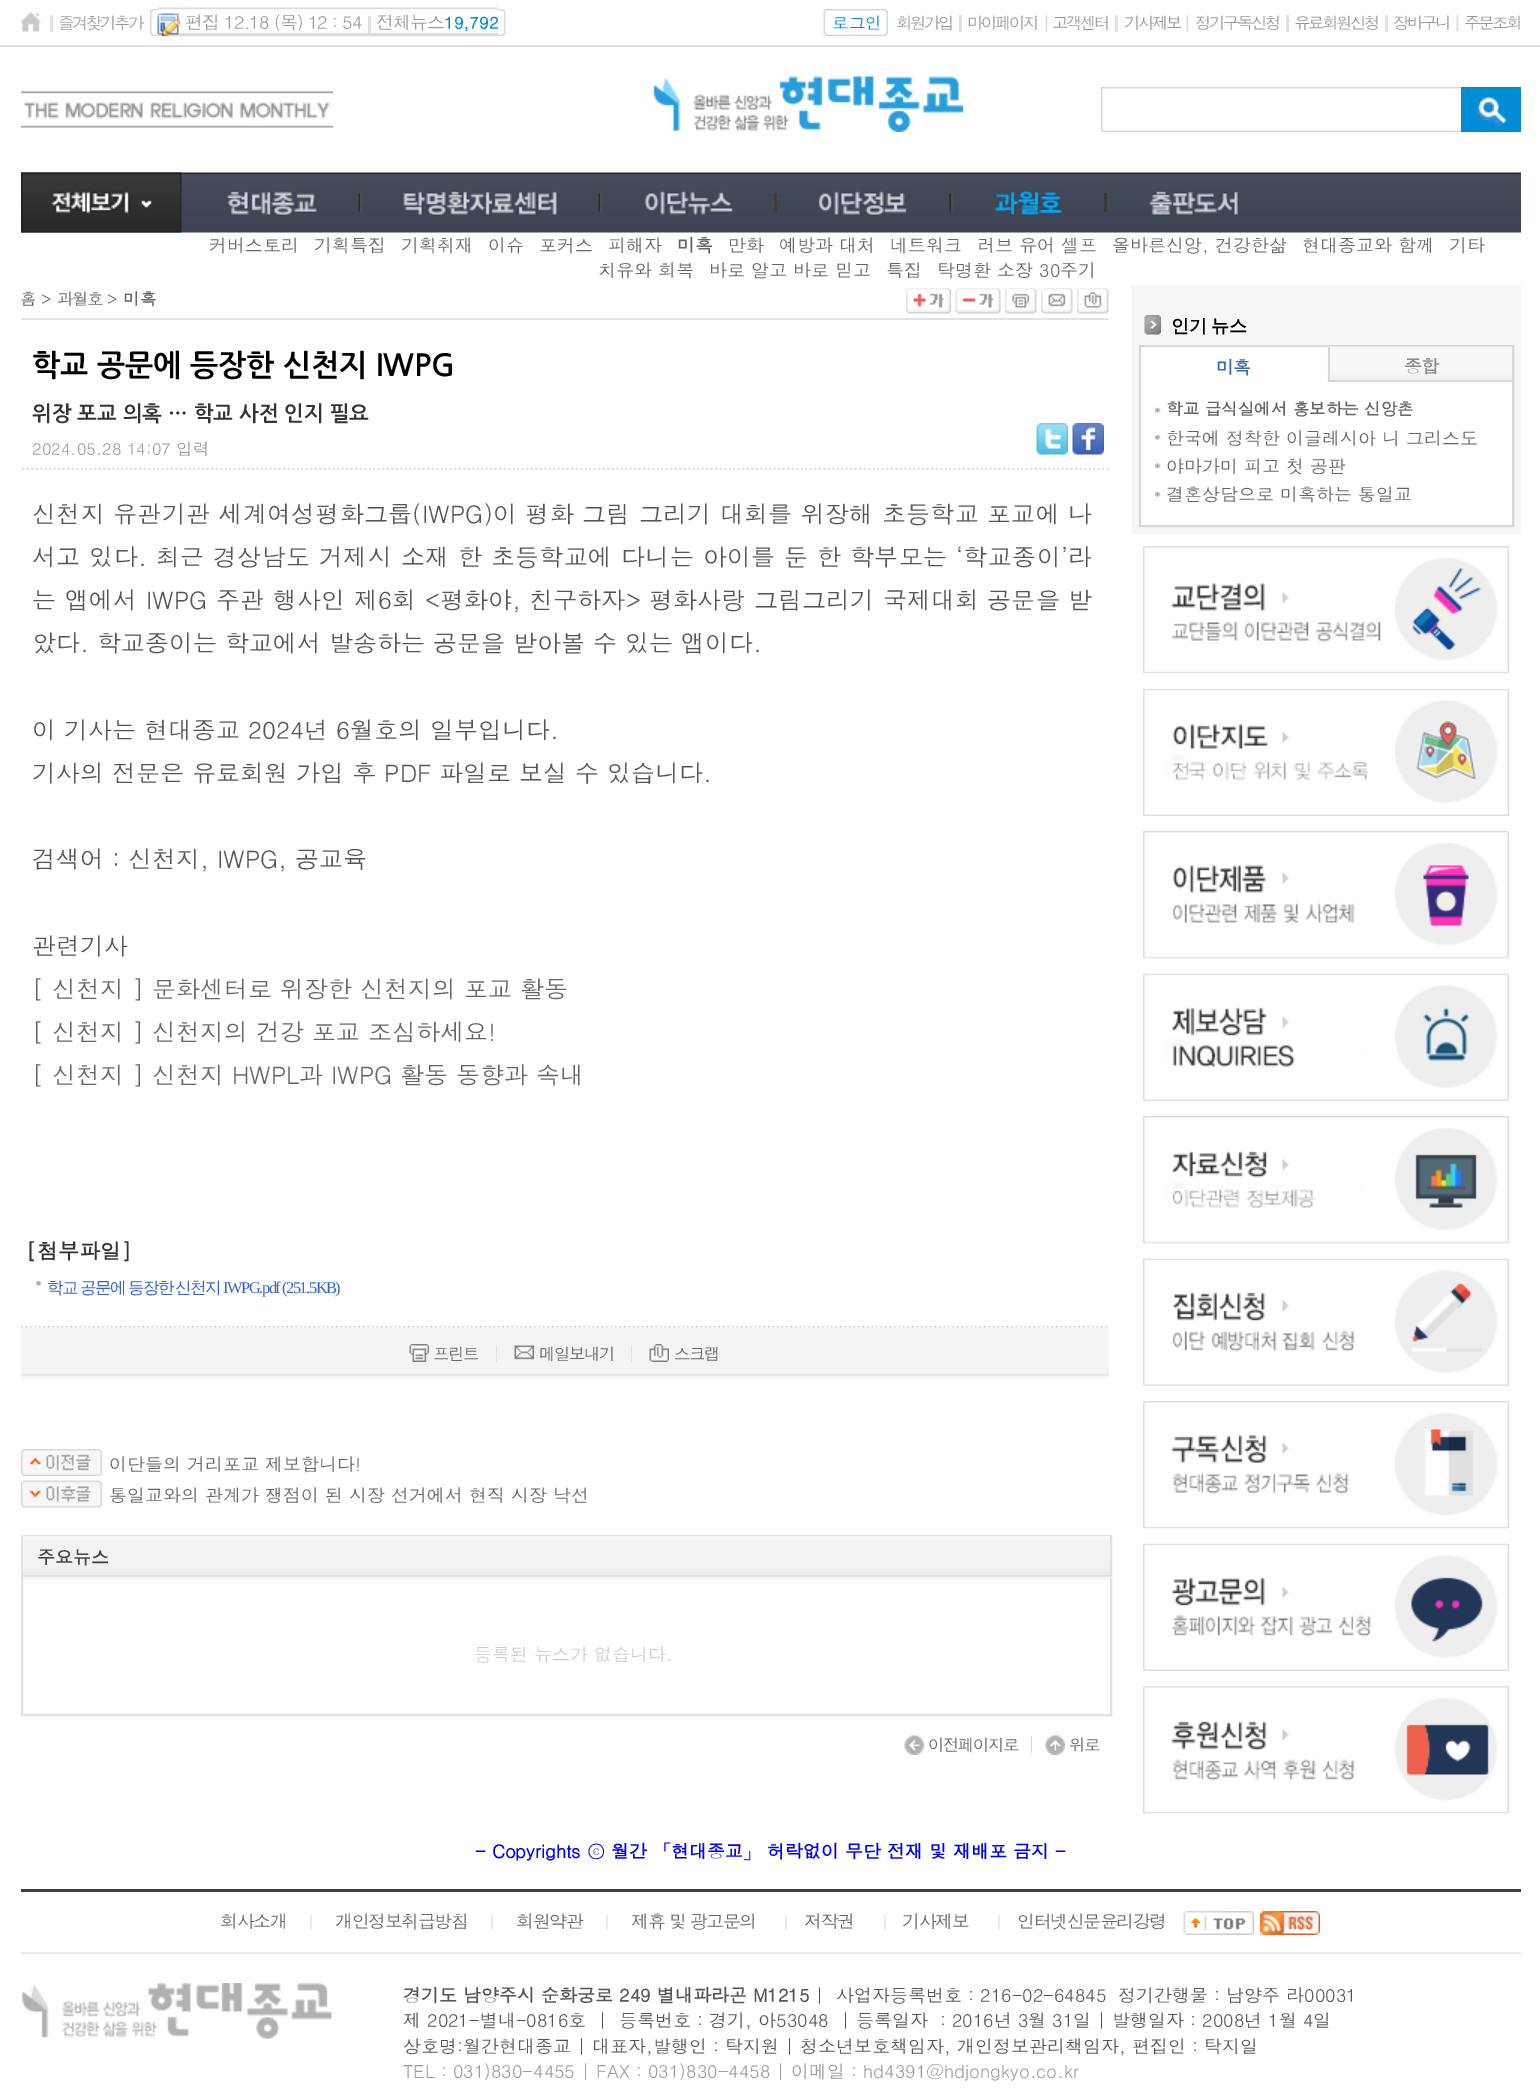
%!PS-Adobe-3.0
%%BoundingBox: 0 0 1540 2093
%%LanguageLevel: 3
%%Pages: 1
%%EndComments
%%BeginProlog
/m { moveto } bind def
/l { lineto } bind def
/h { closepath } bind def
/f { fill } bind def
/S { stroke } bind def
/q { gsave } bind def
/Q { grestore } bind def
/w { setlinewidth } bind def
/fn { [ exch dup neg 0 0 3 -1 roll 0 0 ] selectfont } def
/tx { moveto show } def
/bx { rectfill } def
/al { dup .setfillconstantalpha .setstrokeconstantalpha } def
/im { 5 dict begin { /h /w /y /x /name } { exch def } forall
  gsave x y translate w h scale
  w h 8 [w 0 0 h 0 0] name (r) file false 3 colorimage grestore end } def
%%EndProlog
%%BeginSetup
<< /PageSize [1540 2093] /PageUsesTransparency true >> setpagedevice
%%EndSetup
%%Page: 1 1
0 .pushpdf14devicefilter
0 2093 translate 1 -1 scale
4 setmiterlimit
1 setgray
0 0 1540 2093 bx
0.871 setgray
0 45 1540 2 bx
(image0.raw) 21 11 20 21 im
0.878 setgray
50 15 3 17 bx
/Dotum-Regular 16.5 fn
0.604 setgray
58 29 m -2.5 0 (즐겨찾기추가) ashow
(image2.raw) 157 7 341 30 im
(image1.raw) 150 9 8 27 im
(image3.raw) 157 13 23 24 im
/Dotum-Regular 18 fn
185 29 m -0.9 0 (편집 12.18 \(목\) 12 : 54) ashow
0.81 al
0.851 setgray
368 16 3 17 bx
1 al
0.604 setgray
376 29 m -0.9 0 (전체뉴스) ashow
/Dotum-Bold 16.5 fn
0 0.549 0.839 setrgbcolor
(19,792) 444 29 tx
(image4.raw) 498 9 8 27 im
(image5.raw) 823 9 8 27 im
(image6.raw) 831 9 50 27 im
/Dotum-Regular 16.5 fn
(로그인) 832 29 tx
(image7.raw) 880 9 8 27 im
0.604 setgray
896 29 m -2.5 0 (회원가입) ashow
0.878 setgray
959 15 3 17 bx
0.604 setgray
967 29 m -2.5 0 (마이페이지) ashow
(image8.raw) 1045 14 3 18 im
1052 29 m -2.5 0 (고객센터) ashow
0.878 setgray
1115 15 3 17 bx
0.604 setgray
1124 29 m -2.5 0 (기사제보) ashow
(image8.raw) 1186 14 3 18 im
1195 29 m -2.5 0 (정기구독신청) ashow
0.878 setgray
1286 15 3 17 bx
0.604 setgray
1294 29 m -2.5 0 (유료회원신청) ashow
0.878 setgray
1385 15 3 17 bx
0.604 setgray
1393 29 m -2.5 0 (장바구니) ashow
(image9.raw) 1456 14 3 18 im
1464 29 m -2.5 0 (주문조회) ashow
(image10.raw) 21 91 312 37 im
(image11.raw) 652 76 311 56 im
(image12.raw) 1101 87 15 45 im
(image13.raw) 1116 87 345 45 im
(image14.raw) 1461 87 60 45 im
(image15.raw) 21 172 1500 61 im
(image16.raw) 21 172 161 61 im
(image17.raw) 227 190 91 26 im
(image18.raw) 358 193 4 19 im
(image19.raw) 402 190 156 26 im
(image20.raw) 598 193 4 19 im
(image21.raw) 644 191 89 24 im
0.239 setgray
774 193 3 19 bx
(image22.raw) 818 191 89 25 im
(image23.raw) 949 193 4 19 im
(image24.raw) 994 190 69 26 im
0.227 setgray
1104 193 3 19 bx
(image25.raw) 1149 190 90 26 im
/Dotum-Regular 18 fn
0.4 setgray
(커버스토리) 209 252 tx
(기획특집) 314 252 tx
(기획취재) 401 252 tx
(이슈) 488 252 tx
(포커스) 539 252 tx
(피해자) 608 252 tx
/Dotum-Bold 18 fn
(미혹) 677 252 tx
/Dotum-Regular 18 fn
(만화) 728 252 tx
(예방과 대처) 779 252 tx
(네트워크) 890 252 tx
(러브 유어 셀프) 977 252 tx
(올바른신앙, 건강한삶) 1112 252 tx
(현대종교와 함께) 1302 252 tx
(기타) 1449 252 tx
(치유와 회복) 598 277 tx
(바로 알고 바로 믿고) 709 277 tx
(특집) 886 277 tx
(탁명환 소장 30주기) 937 277 tx
/Dotum-Regular 16.5 fn
20 305 m -1.5 0 (홈) ashow
(>) 41 305 tx
57 305 m -1.5 0 (과월호) ashow
(>) 107 305 tx
/Dotum-Bold 16.5 fn
(미혹) 123 305 tx
(image26.raw) 906 288 45 26 im
(image27.raw) 955 288 46 26 im
(image28.raw) 1005 288 32 26 im
(image29.raw) 1041 288 32 26 im
(image30.raw) 1077 288 32 26 im
0.89 setgray
21 318 1088 2 bx
(image31.raw) 22 468 1087 2 im
/NanumGothic-Bold 30 fn
0 setgray
(학교 공문에 등장한 신천지 IWPG) 32 376 tx
/NanumGothic-Bold 21 fn
0.2 setgray
(위장 포교 의혹 … 학교 사전 인지 필요) 32 421 tx
/Dotum-Regular 16.5 fn
0.604 setgray
(2024.05.28 14:07 입력) 32 455 tx
(image32.raw) 1036 423 32 32 im
(image33.raw) 1072 423 32 32 im
/Dotum-Regular 24 fn
0.333 setgray
32 523 m 0.25 0 (신천지 유관기관 세계여성평화그룹\(IWPG\)이 평화 그림 그리기 대회를 위장해 초등학교 포교에 나) ashow
32 566 m 0.4 0 (서고 있다. 최근 경상남도 거제시 소재 한 초등학교에 다니는 아이를 둔 한 학부모는 ‘학교종이’라) ashow
32 609 m 1 0 32 (는 앱에서 IWPG 주관 행사인 제6회 <평화야,) widthshow
529 609 m 0.15 0 (친구하자> 평화사랑 그림그리기 국제대회 공문을 받) ashow
(았다. 학교종이는 학교에서 발송하는 공문을 받아볼 수 있는 앱이다.) 32 652 tx
(이 기사는 현대종교 2024년 6월호의 일부입니다.) 32 739 tx
(기사의 전문은 유료회원 가입 후 PDF 파일로 보실 수 있습니다.) 32 782 tx
(검색어 : 신천지, IWPG, 공교육) 32 868 tx
(관련기사) 32 955 tx
0.4 setgray
([ 신천지 ] 문화센터로 위장한 신천지의 포교 활동) 32 998 tx
([ 신천지 ] 신천지의 건강 포교 조심하세요!) 32 1041 tx
([ 신천지 ] 신천지 HWPL과 IWPG 활동 동향과 속내) 32 1084 tx
/Dotum-Bold 21 fn
0.2 setgray
([첨부파일]) 26 1259 tx
(image34.raw) 36 1280 6 6 im
/WenQuanYiZenHei-Medium 16.5 fn
0.2 0.4 0.8 setrgbcolor
47 1293 m -1.5 0 (학교) ashow
80 1293 m -1.5 0 (공문에) ashow
128 1293 m -1.5 0 (등장한) ashow
175 1293 m -1.5 0 (신천지) ashow
/LiberationSerif-Regular 16.5 fn
223 1293 m -1.5 0 (IWPG.pdf \(251.5KB\)) ashow
(image35.raw) 21 1326 1087 2 im
0.969 setgray
21 1376 1088 3 bx
0.957 setgray
21 1328 1088 46 bx
0.906 setgray
21 1374 1088 2 bx
(image36.raw) 409 1344 20 18 im
/Dotum-Regular 16.5 fn
0.4 setgray
433 1360 m -1.5 0 (프린트) ashow
/Dotum-Regular 18 fn
0.886 setgray
(|) 492 1360 tx
(image37.raw) 514 1345 20 15 im
/Dotum-Regular 16.5 fn
0.4 setgray
539 1360 m -1.5 0 (메일보내기) ashow
/Dotum-Regular 18 fn
0.886 setgray
(|) 627 1360 tx
(image38.raw) 649 1344 20 18 im
/Dotum-Regular 16.5 fn
0.4 setgray
674 1360 m -1.5 0 (스크랩) ashow
(image39.raw) 21 1449 81 27 im
/Dotum-Regular 18 fn
(이단들의 거리포교 제보합니다!) 109 1471 tx
(image40.raw) 21 1480 81 28 im
(통일교와의 관계가 쟁점이 된 시장 선거에서 현직 시장 낙선) 109 1502 tx
0.882 setgray
2 w
22 1536 1089 179 rectstroke
(image41.raw) 22 1536 1088 39 im
/Dotum-Bold 18 fn
0.263 setgray
(주요뉴스) 37 1564 tx
0.89 setgray
23 1575 1087 2 bx
0.969 setgray
23 1577 1087 3 bx
/Dotum-Regular 18 fn
0.8 setgray
(등록된 뉴스가 없습니다.) 474 1661 tx
(image42.raw) 904 1735 20 20 im
/Dotum-Regular 16.5 fn
0.4 setgray
928 1751 m -1.5 0 (이전페이지로) ashow
/Dotum-Regular 18 fn
0.855 0.851 0.851 setrgbcolor
(|) 1027 1751 tx
(image43.raw) 1045 1735 20 20 im
/Dotum-Regular 16.5 fn
0.4 setgray
1069 1751 m -1.5 0 (위로) ashow
0.965 setgray
1131 285 390 249 bx
(image44.raw) 1144 315 17 20 im
/WenQuanYiZenHei-Bold 18 fn
0 setgray
1171 332 m -1 0 32 (인기 뉴스) widthshow
1 setgray
1140 346 m 1513 346 l 1513 526 l 1140 526 l h q f Q
0.847 setgray
S
/Dotum-Bold 18 fn
0.208 0.416 0.694 setrgbcolor
1216 374 m -1.5 0 (미혹) ashow
(image45.raw) 1327 346 185 35 im
0.847 setgray
1328 380 184 2 bx
1328 347 2 34 bx
0.541 setgray
1404 373 m -1.5 0 (종합) ashow
(image34.raw) 1155 407 6 6 im
/Dotum-Bold 16.5 fn
0.4 setgray
(학교 급식실에서 홍보하는 신앙촌) 1166 415 tx
(image34.raw) 1155 434 6 6 im
/Dotum-Regular 18 fn
(한국에 정착한 이글레시아 니 그리스도) 1166 445 tx
(image46.raw) 1155 463 6 6 im
(야마가미 피고 첫 공판) 1166 473 tx
(image34.raw) 1155 491 6 6 im
(결혼상담으로 미혹하는 통일교) 1166 501 tx
(image47.raw) 1143 546 366 128 im
(image48.raw) 1143 688 366 128 im
(image49.raw) 1143 831 366 128 im
(image50.raw) 1143 973 366 128 im
(image51.raw) 1143 1116 366 128 im
(image52.raw) 1143 1258 366 128 im
(image53.raw) 1143 1401 366 128 im
(image54.raw) 1143 1543 366 128 im
(image55.raw) 1143 1686 366 128 im
/Dotum-Bold 18 fn
0 0 1 setrgbcolor
(- Copyrights ⓒ 월간 「현대종교」 허락없이 무단 전재 및 재배포 금지 -) 475 1858 tx
0.247 setgray
21 1889 1500 3 bx
/Dotum-Regular 18 fn
0.4 setgray
220 1928 m -1.5 0 (회사소개) ashow
/Dotum-Regular 16.5 fn
0.855 0.851 0.851 setrgbcolor
307 1928 m -1.5 0 (|) ashow
/Dotum-Regular 18 fn
0.4 setgray
335 1928 m -1.5 0 (개인정보취급방침) ashow
/Dotum-Regular 16.5 fn
0.855 0.851 0.851 setrgbcolor
488 1928 m -1.5 0 (|) ashow
/Dotum-Regular 18 fn
0.4 setgray
516 1928 m -1.5 0 (회원약관) ashow
/Dotum-Regular 16.5 fn
0.855 0.851 0.851 setrgbcolor
603 1928 m -1.5 0 (|) ashow
/Dotum-Regular 18 fn
0.4 setgray
631 1928 m -1.5 0 (제휴 및 광고문의) ashow
/Dotum-Regular 16.5 fn
0.855 0.851 0.851 setrgbcolor
782 1928 m -1.5 0 (|) ashow
/Dotum-Regular 18 fn
0.4 setgray
804 1928 m -1.5 0 (저작권) ashow
/Dotum-Regular 16.5 fn
0.855 0.851 0.851 setrgbcolor
881 1928 m -1.5 0 (|) ashow
/Dotum-Regular 18 fn
0.4 setgray
902 1928 m -1.5 0 (기사제보) ashow
/Dotum-Regular 16.5 fn
0.855 0.851 0.851 setrgbcolor
995 1928 m -1.5 0 (|) ashow
/Dotum-Regular 18 fn
0.4 setgray
1017 1928 m -1.5 0 (인터넷신문윤리강령) ashow
(image56.raw) 1183 1911 71 24 im
(image57.raw) 1260 1911 60 24 im
0.922 setgray
21 1952 1500 2 bx
(image58.raw) 21 1983 311 56 im
/Dotum-Bold 18 fn
0.333 setgray
(경기도 남양주시 순화궁로 249 별내파라곤 M1215) 403 2002 tx
/Dotum-Regular 18 fn
(|) 815 2002 tx
(사업자등록번호 : 216-02-64845  정기간행물 : 남양주 라00031) 836 2002 tx
(제 2021-별내-0816호  |  등록번호 : 경기, 아53048  | 등록일자  : 2016년 3월 31일 | 발행일자 : 2008년 1월 4일) 403 2027 tx
(상호명:월간현대종교 | 대표자,발행인 : 탁지원 | 청소년보호책임자, 개인정보관리책임자, 편집인 : 탁지일) 403 2053 tx
0.604 setgray
(TEL : 031\)830-4455 | FAX : 031\)830-4458 | 이메일 : hd4391@hdjongkyo.co.kr) 403 2078 tx
.poppdf14devicefilter showpage
%%EOF
